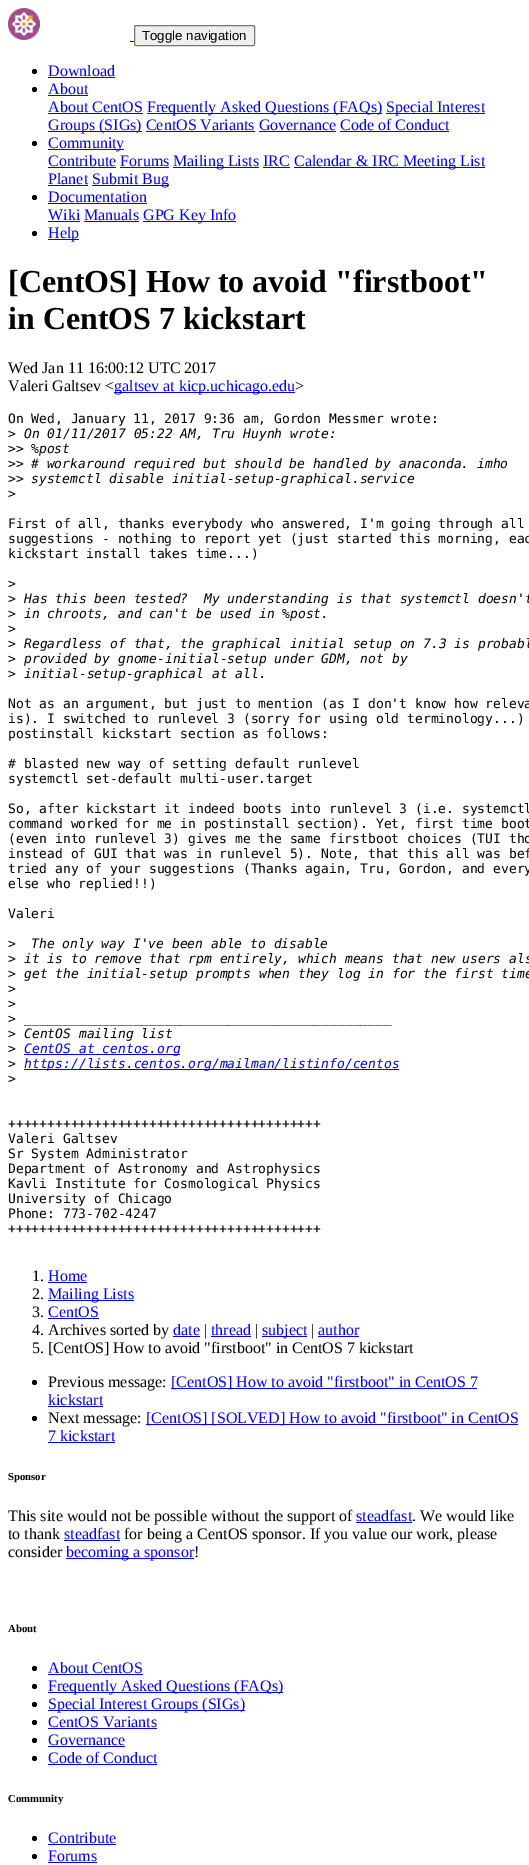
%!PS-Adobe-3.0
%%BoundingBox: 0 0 529 1865
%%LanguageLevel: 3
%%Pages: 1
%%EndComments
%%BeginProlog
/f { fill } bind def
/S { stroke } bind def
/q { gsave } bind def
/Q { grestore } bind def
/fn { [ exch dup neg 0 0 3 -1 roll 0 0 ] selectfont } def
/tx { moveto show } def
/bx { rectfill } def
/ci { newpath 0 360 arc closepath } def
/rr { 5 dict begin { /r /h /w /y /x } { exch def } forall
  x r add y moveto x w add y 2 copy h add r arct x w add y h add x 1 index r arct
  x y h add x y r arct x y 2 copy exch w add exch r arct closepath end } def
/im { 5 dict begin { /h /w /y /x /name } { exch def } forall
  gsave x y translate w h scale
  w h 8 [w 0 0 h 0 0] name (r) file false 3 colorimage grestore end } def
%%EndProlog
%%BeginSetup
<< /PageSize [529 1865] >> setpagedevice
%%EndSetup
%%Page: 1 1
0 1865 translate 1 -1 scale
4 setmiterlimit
1 setgray
0 0 529 1865 bx
(image0.raw) 8 8 32 32 im
0 0 0.933 setrgbcolor
130 41 4 1 bx
0.937 setgray
134.5 25.5 120 20 1.5 rr q f Q
0.463 setgray
S
/LiberationSans-Regular 13.25 fn
0 setgray
(Toggle navigation) 142 40 tx
34.5 71.5 2.5 ci f
/LiberationSerif-Regular 16 fn
0 0 0.933 setrgbcolor
(Download) 48 76 tx
48 77 67 1 bx
0 setgray
34.5 89.5 2.5 ci f
0 0 0.933 setrgbcolor
(About) 48 94 tx
48 95 40 1 bx
(About CentOS) 48 112 tx
48 113 95 1 bx
147 113 235 1 bx
(Frequently Asked Questions \(FAQs\)) 147 112 tx
386 113 99 1 bx
(Special Interest) 386 112 tx
48 131 94 1 bx
(Groups \(SIGs\) CentOS Variants Governance Code of Conduct) 48 130 tx
146 131 109 1 bx
259 131 77 1 bx
340 131 109 1 bx
0 setgray
34.5 143.5 2.5 ci f
0 0 0.933 setrgbcolor
48 149 76 1 bx
(Community) 48 148 tx
(Contribute Forums) 48 166 tx
48 167 68 1 bx
173 167 86 1 bx
(Mailing Lists IRC) 173 166 tx
294 167 191 1 bx
(Calendar & IRC Meeting List) 294 166 tx
120 167 49 1 bx
263 167 27 1 bx
(Planet) 48 184 tx
48 185 40 1 bx
92 185 77 1 bx
(Submit Bug) 92 184 tx
0 setgray
34.5 197.5 2.5 ci f
0 0 0.933 setrgbcolor
(Documentation) 48 202 tx
48 203 99 1 bx
(Wiki Manuals) 48 220 tx
48 221 32 1 bx
143 221 93 1 bx
(GPG Key Info) 143 220 tx
84 221 55 1 bx
0 setgray
34.5 233.5 2.5 ci f
0 0 0.933 setrgbcolor
48 239 31 1 bx
(Help) 48 238 tx
/LiberationSerif-Bold 32 fn
0 setgray
([CentOS] How to avoid "firstboot") 8 292 tx
(in CentOS 7 kickstart) 8 329 tx
/LiberationSerif-Regular 16 fn
(Wed Jan 11 16:00:12 UTC 2017) 8 373 tx
(Valeri Galtsev <) 8 391 tx
0 0 0.933 setrgbcolor
114 392 181 1 bx
(galtsev at kicp.uchicago.edu) 114 391 tx
0 setgray
(>) 295 391 tx
/DejaVuSansMono-Regular 13 fn
(On Wed, January 11, 2017 9:36 am, Gordon Messmer wrote:) 8 423 tx
(>) 8 438 tx
/DejaVuSansMono-Italic 13 fn
(On 01/11/2017 05:22 AM, Tru Huynh wrote:) 24 438 tx
/DejaVuSansMono-Regular 13 fn
(>>) 8 453 tx
/DejaVuSansMono-Italic 13 fn
(%post) 31 453 tx
/DejaVuSansMono-Regular 13 fn
(>>) 8 468 tx
/DejaVuSansMono-Italic 13 fn
(# workaround required but should be handled by anaconda. imho) 31 468 tx
/DejaVuSansMono-Regular 13 fn
(>>) 8 483 tx
/DejaVuSansMono-Italic 13 fn
(systemctl disable initial-setup-graphical.service) 31 483 tx
/DejaVuSansMono-Regular 13 fn
(>) 8 498 tx
(First of all, thanks everybody who answered, I'm going through all) 8 528 tx
(suggestions - nothing to report yet \(just started this morning, eac) 8 543 tx
(kickstart install takes time...\)) 8 558 tx
(>) 8 588 tx
(>) 8 603 tx
/DejaVuSansMono-Italic 13 fn
(Has this been tested?  My understanding is that systemctl doesn't) 24 603 tx
/DejaVuSansMono-Regular 13 fn
(>) 8 618 tx
/DejaVuSansMono-Italic 13 fn
(in chroots, and can't be used in %post.) 24 618 tx
/DejaVuSansMono-Regular 13 fn
(>) 8 633 tx
(>) 8 648 tx
/DejaVuSansMono-Italic 13 fn
(Regardless of that, the graphical initial setup on 7.3 is probabl) 24 648 tx
/DejaVuSansMono-Regular 13 fn
(>) 8 663 tx
/DejaVuSansMono-Italic 13 fn
(provided by gnome-initial-setup under GDM, not by) 24 663 tx
/DejaVuSansMono-Regular 13 fn
(>) 8 678 tx
/DejaVuSansMono-Italic 13 fn
(initial-setup-graphical at all.) 24 678 tx
/DejaVuSansMono-Regular 13 fn
(Not as an argument, but just to mention \(as I don't know how releva) 8 708 tx
(is\). I switched to runlevel 3 \(sorry for using old terminology...\)) 8 723 tx
(postinstall kickstart section as follows:) 8 738 tx
(# blasted new way of setting default runlevel) 8 768 tx
(systemctl set-default multi-user.target) 8 783 tx
(So, after kickstart it indeed boots into runlevel 3 \(i.e. systemctl) 8 813 tx
(command worked for me in postinstall section\). Yet, first time boot) 8 828 tx
(\(even into runlevel 3\) gives me the same firstboot choices \(TUI tho) 8 843 tx
(instead of GUI that was in runlevel 5\). Note, that this all was bef) 8 858 tx
(tried any of your suggestions \(Thanks again, Tru, Gordon, and every) 8 873 tx
(else who replied!!\)) 8 888 tx
(Valeri) 8 918 tx
(>) 8 948 tx
/DejaVuSansMono-Italic 13 fn
(The only way I've been able to disable) 31 948 tx
/DejaVuSansMono-Regular 13 fn
(>) 8 963 tx
/DejaVuSansMono-Italic 13 fn
(it is to remove that rpm entirely, which means that new users als) 24 963 tx
/DejaVuSansMono-Regular 13 fn
(>) 8 978 tx
/DejaVuSansMono-Italic 13 fn
(get the initial-setup prompts when they log in for the first time) 24 978 tx
/DejaVuSansMono-Regular 13 fn
(>) 8 993 tx
(>) 8 1008 tx
(>) 8 1023 tx
/DejaVuSansMono-Italic 13 fn
(_______________________________________________) 24 1023 tx
/DejaVuSansMono-Regular 13 fn
(>) 8 1038 tx
/DejaVuSansMono-Italic 13 fn
(CentOS mailing list) 24 1038 tx
/DejaVuSansMono-Regular 13 fn
(>) 8 1053 tx
0 0 0.933 setrgbcolor
24 1054 156 1 bx
/DejaVuSansMono-Italic 13 fn
(CentOS at centos.org) 24 1053 tx
/DejaVuSansMono-Regular 13 fn
0 setgray
(>) 8 1068 tx
0 0 0.933 setrgbcolor
24 1069 375 1 bx
/DejaVuSansMono-Italic 13 fn
(https://lists.centos.org/mailman/listinfo/centos) 24 1068 tx
/DejaVuSansMono-Regular 13 fn
0 setgray
(>) 8 1083 tx
(++++++++++++++++++++++++++++++++++++++++) 8 1128 tx
(Valeri Galtsev) 8 1143 tx
(Sr System Administrator) 8 1158 tx
(Department of Astronomy and Astrophysics) 8 1173 tx
(Kavli Institute for Cosmological Physics) 8 1188 tx
(University of Chicago) 8 1203 tx
(Phone: 773-702-4247) 8 1218 tx
(++++++++++++++++++++++++++++++++++++++++) 8 1233 tx
/LiberationSerif-Regular 16 fn
(1.) 32 1281 tx
0 0 0.933 setrgbcolor
(Home) 48 1281 tx
48 1282 39 1 bx
0 setgray
(2.) 32 1299 tx
0 0 0.933 setrgbcolor
48 1300 86 1 bx
(Mailing Lists) 48 1299 tx
0 setgray
(3.) 32 1317 tx
0 0 0.933 setrgbcolor
(CentOS) 48 1317 tx
48 1318 51 1 bx
0 setgray
(4. Archives sorted by) 32 1335 tx
0 0 0.933 setrgbcolor
(date) 173 1335 tx
173 1336 27 1 bx
0 setgray
(|) 204 1335 tx
0 0 0.933 setrgbcolor
(thread) 211 1335 tx
211 1336 40 1 bx
0 setgray
(|) 255 1335 tx
0 0 0.933 setrgbcolor
262 1336 45 1 bx
(subject) 262 1335 tx
0 setgray
(|) 311 1335 tx
0 0 0.933 setrgbcolor
(author) 318 1335 tx
318 1336 41 1 bx
0 setgray
(5. [CentOS] How to avoid "firstboot" in CentOS 7 kickstart) 32 1353 tx
34.5 1382.5 2.5 ci f
(Previous message:) 48 1387 tx
0 0 0.933 setrgbcolor
171 1388 306 1 bx
([CentOS] How to avoid "firstboot" in CentOS 7) 171 1387 tx
(kickstart) 48 1405 tx
48 1406 55 1 bx
0 setgray
34.5 1418.5 2.5 ci f
(Next message:) 48 1423 tx
0 0 0.933 setrgbcolor
146 1424 372 1 bx
([CentOS] [SOLVED] How to avoid "firstboot" in CentOS) 146 1423 tx
(7 kickstart) 48 1441 tx
48 1442 67 1 bx
/LiberationSerif-Bold 10.75 fn
0 setgray
(Sponsor) 8 1480 tx
/LiberationSerif-Regular 16 fn
(This site would not be possible without the support of) 8 1521 tx
0 0 0.933 setrgbcolor
(steadfast) 356 1521 tx
356 1522 56 1 bx
0 setgray
(. We would like) 412 1521 tx
(to thank) 8 1539 tx
0 0 0.933 setrgbcolor
(steadfast) 64 1539 tx
64 1540 56 1 bx
0 setgray
(for being a CentOS sponsor. If you value our work, please) 124 1539 tx
(consider) 8 1557 tx
0 0 0.933 setrgbcolor
66 1558 128 1 bx
(becoming a sponsor) 66 1557 tx
0 setgray
(!) 194 1557 tx
/LiberationSerif-Bold 10.75 fn
(About) 8 1632 tx
34.5 1668.5 2.5 ci f
/LiberationSerif-Regular 16 fn
0 0 0.933 setrgbcolor
(About CentOS) 48 1673 tx
48 1674 95 1 bx
0 setgray
34.5 1686.5 2.5 ci f
0 0 0.933 setrgbcolor
48 1692 235 1 bx
(Frequently Asked Questions \(FAQs\)) 48 1691 tx
0 setgray
34.5 1704.5 2.5 ci f
0 0 0.933 setrgbcolor
48 1710 197 1 bx
(Special Interest Groups \(SIGs\)) 48 1709 tx
0 setgray
34.5 1722.5 2.5 ci f
0 0 0.933 setrgbcolor
(CentOS Variants) 48 1727 tx
48 1728 109 1 bx
0 setgray
34.5 1740.5 2.5 ci f
0 0 0.933 setrgbcolor
(Governance) 48 1745 tx
48 1746 77 1 bx
0 setgray
34.5 1758.5 2.5 ci f
0 0 0.933 setrgbcolor
(Code of Conduct) 48 1763 tx
48 1764 109 1 bx
/LiberationSerif-Bold 10.75 fn
0 setgray
(Community) 8 1802 tx
34.5 1838.5 2.5 ci f
/LiberationSerif-Regular 16 fn
0 0 0.933 setrgbcolor
(Contribute) 48 1843 tx
48 1844 68 1 bx
0 setgray
34.5 1856.5 2.5 ci f
0 0 0.933 setrgbcolor
(Forums) 48 1861 tx
48 1862 49 1 bx
showpage
%%EOF
